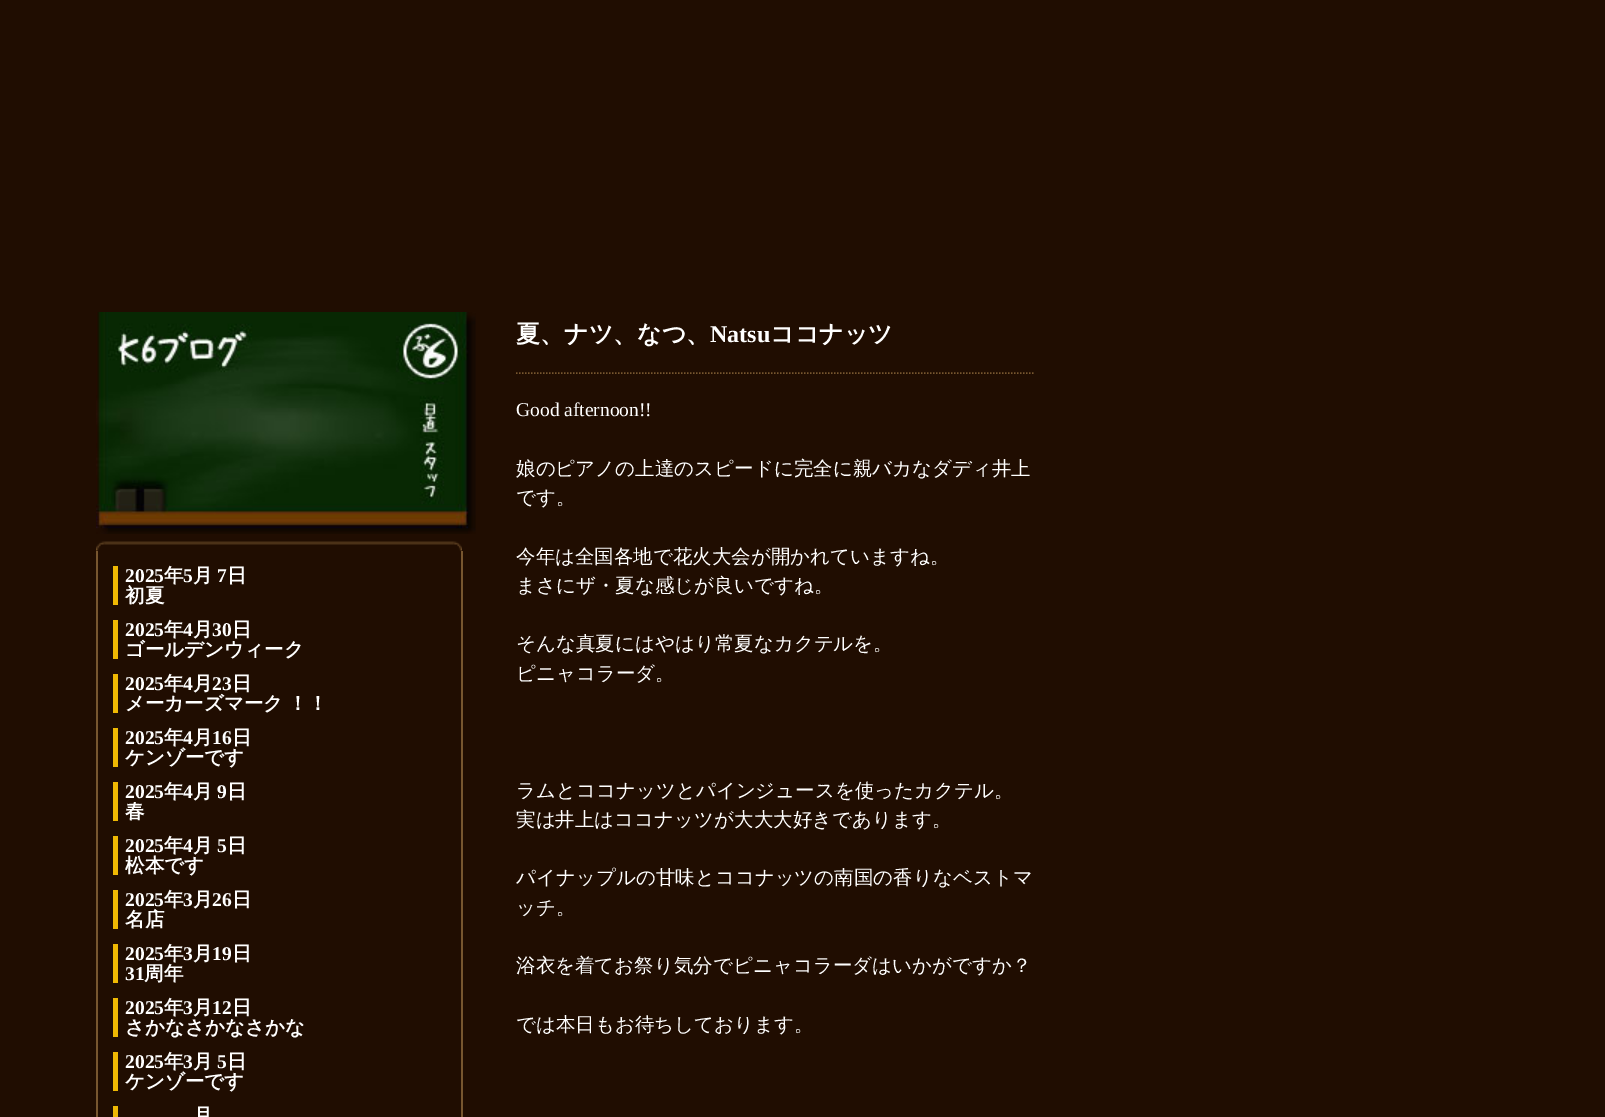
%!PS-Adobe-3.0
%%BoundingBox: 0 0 1605 1117
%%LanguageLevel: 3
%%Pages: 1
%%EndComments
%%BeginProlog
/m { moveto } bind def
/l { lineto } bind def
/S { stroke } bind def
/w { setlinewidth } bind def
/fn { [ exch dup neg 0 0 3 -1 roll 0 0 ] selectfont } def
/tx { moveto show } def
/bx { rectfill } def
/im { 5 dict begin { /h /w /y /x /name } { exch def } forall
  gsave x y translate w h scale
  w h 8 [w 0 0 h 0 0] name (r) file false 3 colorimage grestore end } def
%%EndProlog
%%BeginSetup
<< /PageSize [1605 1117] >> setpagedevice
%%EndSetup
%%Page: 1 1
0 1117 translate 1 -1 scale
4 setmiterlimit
0.125 0.051 0.004 setrgbcolor
0 0 1605 1117 bx
(image0.raw) 96 312 380 222 im
(image1.raw) 96 541 366 10 im
0.467 0.337 0.184 setrgbcolor
96 551 2 566 bx
0.937 0.722 0.012 setrgbcolor
113 566 5 39 bx
/LiberationSerif-Bold 19.5 fn
1 setgray
(2025) 125 582 tx
/WenQuanYiZenHei-Bold 19.5 fn
(年) 164 582 tx
/LiberationSerif-Bold 19.5 fn
(5) 183 582 tx
/WenQuanYiZenHei-Bold 19.5 fn
(月) 193 582 tx
/LiberationSerif-Bold 19.5 fn
(7) 217 582 tx
/WenQuanYiZenHei-Bold 19.5 fn
(日) 227 582 tx
(初夏) 125 602 tx
0.937 0.722 0.012 setrgbcolor
113 620 5 39 bx
/LiberationSerif-Bold 19.5 fn
1 setgray
(2025) 125 636 tx
/WenQuanYiZenHei-Bold 19.5 fn
(年) 164 636 tx
/LiberationSerif-Bold 19.5 fn
(4) 183 636 tx
/WenQuanYiZenHei-Bold 19.5 fn
(月) 193 636 tx
/LiberationSerif-Bold 19.5 fn
(30) 212 636 tx
/WenQuanYiZenHei-Bold 19.5 fn
(日) 232 636 tx
(ゴールデンウィーク) 125 656 tx
0.937 0.722 0.012 setrgbcolor
113 674 5 39 bx
/LiberationSerif-Bold 19.5 fn
1 setgray
(2025) 125 690 tx
/WenQuanYiZenHei-Bold 19.5 fn
(年) 164 690 tx
/LiberationSerif-Bold 19.5 fn
(4) 183 690 tx
/WenQuanYiZenHei-Bold 19.5 fn
(月) 193 690 tx
/LiberationSerif-Bold 19.5 fn
(23) 212 690 tx
/WenQuanYiZenHei-Bold 19.5 fn
(日) 232 690 tx
125 710 m -1 0 32 (メーカーズマーク ！！) widthshow
0.937 0.722 0.012 setrgbcolor
113 728 5 39 bx
/LiberationSerif-Bold 19.5 fn
1 setgray
(2025) 125 744 tx
/WenQuanYiZenHei-Bold 19.5 fn
(年) 164 744 tx
/LiberationSerif-Bold 19.5 fn
(4) 183 744 tx
/WenQuanYiZenHei-Bold 19.5 fn
(月) 193 744 tx
/LiberationSerif-Bold 19.5 fn
(16) 212 744 tx
/WenQuanYiZenHei-Bold 19.5 fn
(日) 232 744 tx
(ケンゾーです) 125 764 tx
0.937 0.722 0.012 setrgbcolor
113 782 5 39 bx
/LiberationSerif-Bold 19.5 fn
1 setgray
(2025) 125 798 tx
/WenQuanYiZenHei-Bold 19.5 fn
(年) 164 798 tx
/LiberationSerif-Bold 19.5 fn
(4) 183 798 tx
/WenQuanYiZenHei-Bold 19.5 fn
(月) 193 798 tx
/LiberationSerif-Bold 19.5 fn
(9) 217 798 tx
/WenQuanYiZenHei-Bold 19.5 fn
(日) 227 798 tx
(春) 125 818 tx
0.937 0.722 0.012 setrgbcolor
113 836 5 39 bx
/LiberationSerif-Bold 19.5 fn
1 setgray
(2025) 125 852 tx
/WenQuanYiZenHei-Bold 19.5 fn
(年) 164 852 tx
/LiberationSerif-Bold 19.5 fn
(4) 183 852 tx
/WenQuanYiZenHei-Bold 19.5 fn
(月) 193 852 tx
/LiberationSerif-Bold 19.5 fn
(5) 217 852 tx
/WenQuanYiZenHei-Bold 19.5 fn
(日) 227 852 tx
(松本です) 125 872 tx
0.937 0.722 0.012 setrgbcolor
113 890 5 39 bx
/LiberationSerif-Bold 19.5 fn
1 setgray
(2025) 125 906 tx
/WenQuanYiZenHei-Bold 19.5 fn
(年) 164 906 tx
/LiberationSerif-Bold 19.5 fn
(3) 183 906 tx
/WenQuanYiZenHei-Bold 19.5 fn
(月) 193 906 tx
/LiberationSerif-Bold 19.5 fn
(26) 212 906 tx
/WenQuanYiZenHei-Bold 19.5 fn
(日) 232 906 tx
(名店) 125 926 tx
0.937 0.722 0.012 setrgbcolor
113 944 5 39 bx
/LiberationSerif-Bold 19.5 fn
1 setgray
(2025) 125 960 tx
/WenQuanYiZenHei-Bold 19.5 fn
(年) 164 960 tx
/LiberationSerif-Bold 19.5 fn
(3) 183 960 tx
/WenQuanYiZenHei-Bold 19.5 fn
(月) 193 960 tx
/LiberationSerif-Bold 19.5 fn
(19) 212 960 tx
/WenQuanYiZenHei-Bold 19.5 fn
(日) 232 960 tx
/LiberationSerif-Bold 19.5 fn
(31) 125 980 tx
/WenQuanYiZenHei-Bold 19.5 fn
(周年) 144 980 tx
0.937 0.722 0.012 setrgbcolor
113 998 5 39 bx
/LiberationSerif-Bold 19.5 fn
1 setgray
(2025) 125 1014 tx
/WenQuanYiZenHei-Bold 19.5 fn
(年) 164 1014 tx
/LiberationSerif-Bold 19.5 fn
(3) 183 1014 tx
/WenQuanYiZenHei-Bold 19.5 fn
(月) 193 1014 tx
/LiberationSerif-Bold 19.5 fn
(12) 212 1014 tx
/WenQuanYiZenHei-Bold 19.5 fn
(日) 232 1014 tx
(さかなさかなさかな) 125 1034 tx
0.937 0.722 0.012 setrgbcolor
113 1052 5 39 bx
/LiberationSerif-Bold 19.5 fn
1 setgray
(2025) 125 1068 tx
/WenQuanYiZenHei-Bold 19.5 fn
(年) 164 1068 tx
/LiberationSerif-Bold 19.5 fn
(3) 183 1068 tx
/WenQuanYiZenHei-Bold 19.5 fn
(月) 193 1068 tx
/LiberationSerif-Bold 19.5 fn
(5) 217 1068 tx
/WenQuanYiZenHei-Bold 19.5 fn
(日) 227 1068 tx
(ケンゾーです) 125 1088 tx
0.937 0.722 0.012 setrgbcolor
113 1106 5 11 bx
1 setgray
(月) 193 1122 tx
0.467 0.337 0.184 setrgbcolor
461 551 2 566 bx
1.5 w
[1.5 1.5] 0 setdash
516 373 m 1033.5 373 l S
/WenQuanYiZenHei-Bold 24 fn
1 setgray
(夏、ナツ、なつ、) 516 342 tx
/LiberationSerif-Bold 24 fn
(Natsu) 710 342 tx
/WenQuanYiZenHei-Bold 24 fn
(ココナッツ) 770 342 tx
/LiberationSerif-Regular 19.5 fn
(Good afternoon!!) 516 416 tx
/WenQuanYiZenHei-Medium 19.5 fn
(娘のピアノの上達のスピードに完全に親バカなダディ井上) 516 475 tx
(です。) 516 504 tx
(今年は全国各地で花火大会が開かれていますね。) 516 563 tx
(まさにザ・夏な感じが良いですね。) 516 592 tx
(そんな真夏にはやはり常夏なカクテルを。) 516 650 tx
(ピニャコラーダ。) 516 680 tx
(ラムとココナッツとパインジュースを使ったカクテル。) 516 797 tx
(実は井上はココナッツが大大大好きであります。) 516 826 tx
(パイナップルの甘味とココナッツの南国の香りなベストマ) 516 884 tx
(ッチ。) 516 914 tx
(浴衣を着てお祭り気分でピニャコラーダはいかがですか？) 516 972 tx
(では本日もお待ちしております。) 516 1031 tx
showpage
%%EOF
